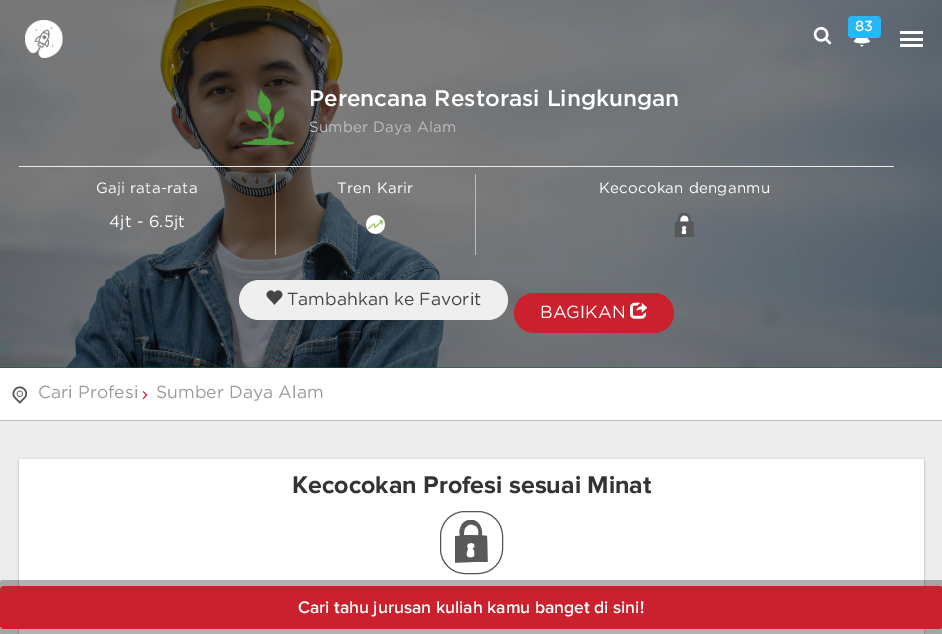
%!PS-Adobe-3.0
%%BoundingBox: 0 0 942 634
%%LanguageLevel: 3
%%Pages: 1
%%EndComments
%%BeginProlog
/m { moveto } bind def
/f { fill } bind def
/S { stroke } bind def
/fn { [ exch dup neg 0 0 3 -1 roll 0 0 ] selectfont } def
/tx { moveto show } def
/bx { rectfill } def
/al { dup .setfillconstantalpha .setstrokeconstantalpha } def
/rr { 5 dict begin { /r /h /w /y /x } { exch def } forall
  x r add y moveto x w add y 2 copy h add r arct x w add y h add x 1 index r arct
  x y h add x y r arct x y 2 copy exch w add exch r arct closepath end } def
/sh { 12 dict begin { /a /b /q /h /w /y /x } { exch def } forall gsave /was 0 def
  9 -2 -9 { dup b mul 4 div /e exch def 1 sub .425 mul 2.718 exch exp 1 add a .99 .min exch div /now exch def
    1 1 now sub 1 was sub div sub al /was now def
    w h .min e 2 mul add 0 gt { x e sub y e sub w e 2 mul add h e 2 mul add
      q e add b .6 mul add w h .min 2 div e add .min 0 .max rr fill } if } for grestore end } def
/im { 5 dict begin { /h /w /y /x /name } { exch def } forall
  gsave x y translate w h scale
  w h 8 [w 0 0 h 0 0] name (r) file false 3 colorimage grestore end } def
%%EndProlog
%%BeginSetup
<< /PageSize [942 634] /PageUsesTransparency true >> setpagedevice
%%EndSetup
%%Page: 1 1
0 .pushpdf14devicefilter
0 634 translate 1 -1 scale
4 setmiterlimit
1 setgray
0 0 942 634 bx
0 0.396 0.227 setrgbcolor
0 367 942 1 bx
(image3.raw) 0 0 942 368 im
(image0.raw) 25 20 38 38 im
(image1.raw) 813 27 19 18 im
0.161 0.714 0.965 setrgbcolor
848 16 33 22 4 rr f
/Gotham-Bold 14 fn
1 setgray
(83) 855 31 tx
(image2.raw) 853 38 17 9 im
900 38 23 3 bx
900 31 23 3 bx
900 44 23 3 bx
(image4.raw) 241 89 54 56 im
/Gotham-Medium 22.5 fn
(Perencana Restorasi Lingkungan) 309 106 tx
/Gotham-Regular 15 fn
0.737 0.741 0.753 setrgbcolor
309 132 m 0.25 0 (Sumber Daya Alam) ashow
0.929 setgray
19 166 875 1 bx
0.737 0.741 0.753 setrgbcolor
275 174 1 81 bx
1 setgray
96 193 m 0.25 0 (Gaji rata-rata) ashow
/Gotham-Regular 16.25 fn
109 227 m 0.25 0 (4jt - 6.5jt) ashow
0.737 0.741 0.753 setrgbcolor
475 174 1 81 bx
/Gotham-Regular 15 fn
1 setgray
337 193 m 0.25 0 (Tren Karir) ashow
(image5.raw) 366 215 19 19 im
599 193 m 0.25 0 (Kecocokan denganmu) ashow
(image6.raw) 675 213 19 25 im
0.937 setgray
239 280 269 40 20 rr f
(image7.raw) 266 290 17 15 im
/Gotham-Regular 17.5 fn
0.267 setgray
(Tambahkan ke Favorit) 287 305 tx
0.796 0.125 0.176 setrgbcolor
514 293 160 40 20 rr f
1 setgray
(BAGIKAN) 540 318 tx
(image8.raw) 630 302 17 17 im
0.737 0.741 0.753 setrgbcolor
0 420 942 1 bx
(image9.raw) 12 386 16 18 im
0.6 0.604 0.612 setrgbcolor
(Cari Profesi) 38 398 tx
(image10.raw) 142 391 6 9 im
(Sumber Daya Alam) 156 398 tx
0.925 setgray
0 421 942 213 bx
0 setgray
19 459 905 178 0 1 0.12 sh
19 461 905 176 0 1 0.24 sh
1 setgray
19 459 905 175 bx
/ProximaNova-Bold 25 fn
0.2 setgray
(Kecocokan Profesi sesuai Minat) 292 493 tx
0.333 setgray
440.5 511.5 62 62 24.5 rr S
(image11.raw) 455 520 33 43 im
0.3 al
0 setgray
0 580 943 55 2.5 rr f
1 al
0.796 0.125 0.176 setrgbcolor
0 586 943 43 4 rr f
/ProximaNova-SemiBold 17.5 fn
1 setgray
(Cari tahu jurusan kuliah kamu banget di sini!) 298 613 tx
.poppdf14devicefilter showpage
%%EOF
